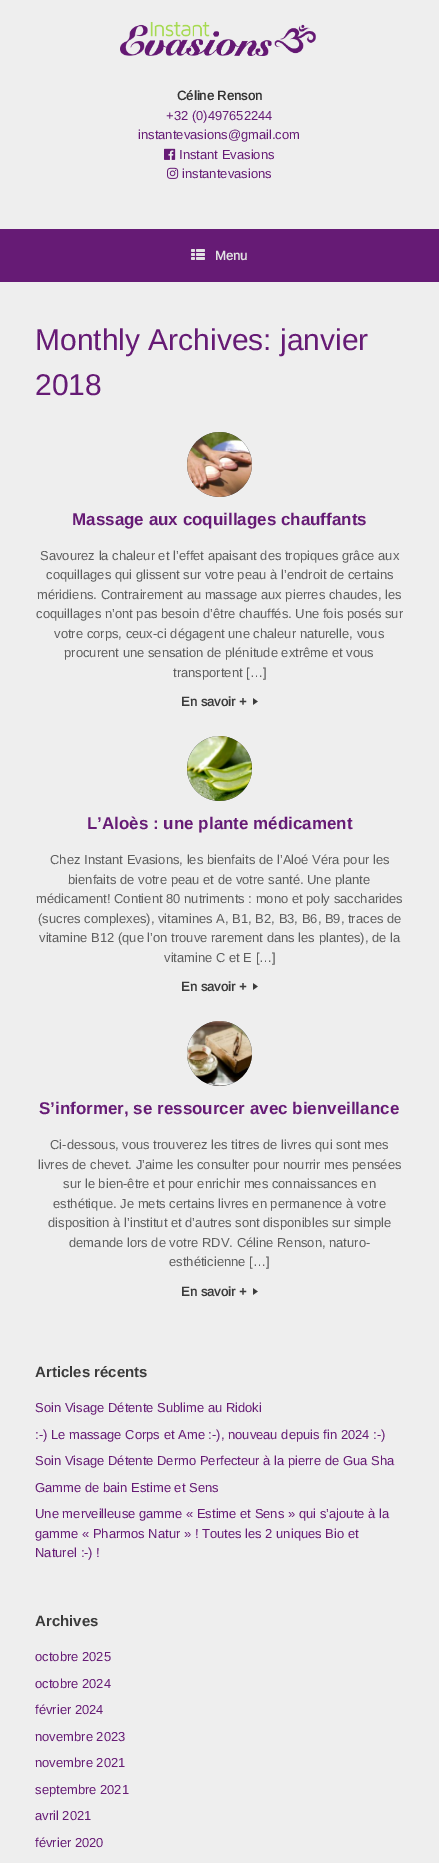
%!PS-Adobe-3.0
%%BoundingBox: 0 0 439 1863
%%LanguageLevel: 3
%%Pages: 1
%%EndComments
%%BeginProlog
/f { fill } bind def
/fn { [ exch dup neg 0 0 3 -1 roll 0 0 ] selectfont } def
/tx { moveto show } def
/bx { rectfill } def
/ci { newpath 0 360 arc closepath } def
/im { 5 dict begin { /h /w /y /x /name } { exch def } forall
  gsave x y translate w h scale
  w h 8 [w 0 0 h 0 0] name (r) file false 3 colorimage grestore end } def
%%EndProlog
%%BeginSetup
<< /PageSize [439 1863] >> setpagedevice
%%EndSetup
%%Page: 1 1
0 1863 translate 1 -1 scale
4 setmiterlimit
0.933 setgray
0 0 439 1863 bx
(image0.raw) 120 22 196 34 im
/Arimo-Bold 13 fn
0.2 setgray
(Céline Renson) 177 100 tx
/Arimo-Regular 13 fn
0.4 0.106 0.459 setrgbcolor
(+32 \(0\)497652244) 166 120 tx
(instantevasions@gmail.com) 138 139 tx
(image1.raw) 164 148 12 12 im
(Instant Evasions) 179 159 tx
(image2.raw) 167 167 12 12 im
(instantevasions) 182 178 tx
0 229 439 53 bx
(image3.raw) 191 249 14 11 im
/Arimo-Bold 13 fn
0.886 setgray
(Menu) 215 260 tx
/LiberationSans-Regular 30 fn
0.4 0.106 0.459 setrgbcolor
(Monthly Archives: janvier) 35 350 tx
(2018) 35 395 tx
0.227 0.231 0.243 setrgbcolor
219.5 464.5 32.5 ci f
(image4.raw) 187 432 65 65 im
/LiberationSans-Bold 17 fn
0.4 0.106 0.459 setrgbcolor
(Massage aux coquillages chauffants) 72 525 tx
/Arimo-Regular 13 fn
0.369 setgray
(Savourez la chaleur et l’effet apaisant des tropiques grâce aux) 40 560 tx
(coquillages qui glissent sur votre peau à l’endroit de certains) 46 579 tx
(méridiens. Contrairement au massage aux pierres chaudes, les) 37 599 tx
(coquillages n’ont pas besoin d’être chauffés. Une fois posés sur) 36 618 tx
(votre corps, ceux-ci dégagent une chaleur naturelle, vous) 54 638 tx
(procurent une sensation de plénitude extrême et vous) 64 657 tx
(transportent […]) 173 677 tx
/Arimo-Bold 13 fn
0.231 setgray
(En savoir +) 181 706 tx
(image5.raw) 253 698 5 7 im
0.227 0.231 0.243 setrgbcolor
219.5 768.5 32.5 ci f
(image6.raw) 187 736 65 65 im
/LiberationSans-Bold 17 fn
0.4 0.106 0.459 setrgbcolor
(L’Aloès : une plante médicament) 87 829 tx
/Arimo-Regular 13 fn
0.369 setgray
(Chez Instant Evasions, les bienfaits de l’Aloé Véra pour les) 50 864 tx
(bienfaits de votre peau et de votre santé. Une plante) 68 884 tx
(médicament! Contient 80 nutriments : mono et poly saccharides) 36 903 tx
(\(sucres complexes\), vitamines A, B1, B2, B3, B6, B9, traces de) 38 923 tx
(vitamine B12 \(que l’on trouve rarement dans les plantes\), de la) 39 942 tx
(vitamine C et E […]) 164 962 tx
/Arimo-Bold 13 fn
0.231 setgray
(En savoir +) 181 991 tx
(image5.raw) 253 983 5 7 im
0.227 0.231 0.243 setrgbcolor
219.5 1053.5 32.5 ci f
(image7.raw) 187 1021 65 65 im
/LiberationSans-Bold 17 fn
0.4 0.106 0.459 setrgbcolor
(S’informer, se ressourcer avec bienveillance) 39 1114 tx
/Arimo-Regular 13 fn
0.369 setgray
(Ci-dessous, vous trouverez les titres de livres qui sont mes) 50 1149 tx
(livres de chevet. J’aime les consulter pour nourrir mes pensées) 38 1169 tx
(sur le bien-être et pour enrichir mes connaissances en) 63 1188 tx
(esthétique. Je mets certains livres en permanence à votre) 53 1208 tx
(disposition à l’institut et d’autres sont disponibles sur simple) 48 1227 tx
(demande lors de votre RDV. Céline Renson, naturo-) 69 1247 tx
(esthéticienne […]) 169 1266 tx
/Arimo-Bold 13 fn
0.231 setgray
(En savoir +) 181 1296 tx
(image5.raw) 253 1288 5 7 im
/LiberationSans-Bold 15 fn
(Articles récents) 35 1377 tx
/Arimo-Regular 13 fn
0.4 0.106 0.459 setrgbcolor
(Soin Visage Détente Sublime au Ridoki) 35 1412 tx
(:-\) Le massage Corps et Ame :-\), nouveau depuis fin 2024 :-\)) 35 1439 tx
(Soin Visage Détente Dermo Perfecteur à la pierre de Gua Sha) 35 1465 tx
(Gamme de bain Estime et Sens) 35 1492 tx
(Une merveilleuse gamme « Estime et Sens » qui s’ajoute à la) 35 1518 tx
(gamme « Pharmos Natur » ! Toutes les 2 uniques Bio et) 35 1538 tx
(Naturel :-\) !) 35 1557 tx
/LiberationSans-Bold 15 fn
0.231 setgray
(Archives) 35 1626 tx
/Arimo-Regular 13 fn
0.4 0.106 0.459 setrgbcolor
(octobre 2025) 35 1661 tx
(octobre 2024) 35 1688 tx
(février 2024) 35 1714 tx
(novembre 2023) 35 1741 tx
(novembre 2021) 35 1767 tx
(septembre 2021) 35 1794 tx
(avril 2021) 35 1820 tx
(février 2020) 35 1847 tx
showpage
%%EOF
